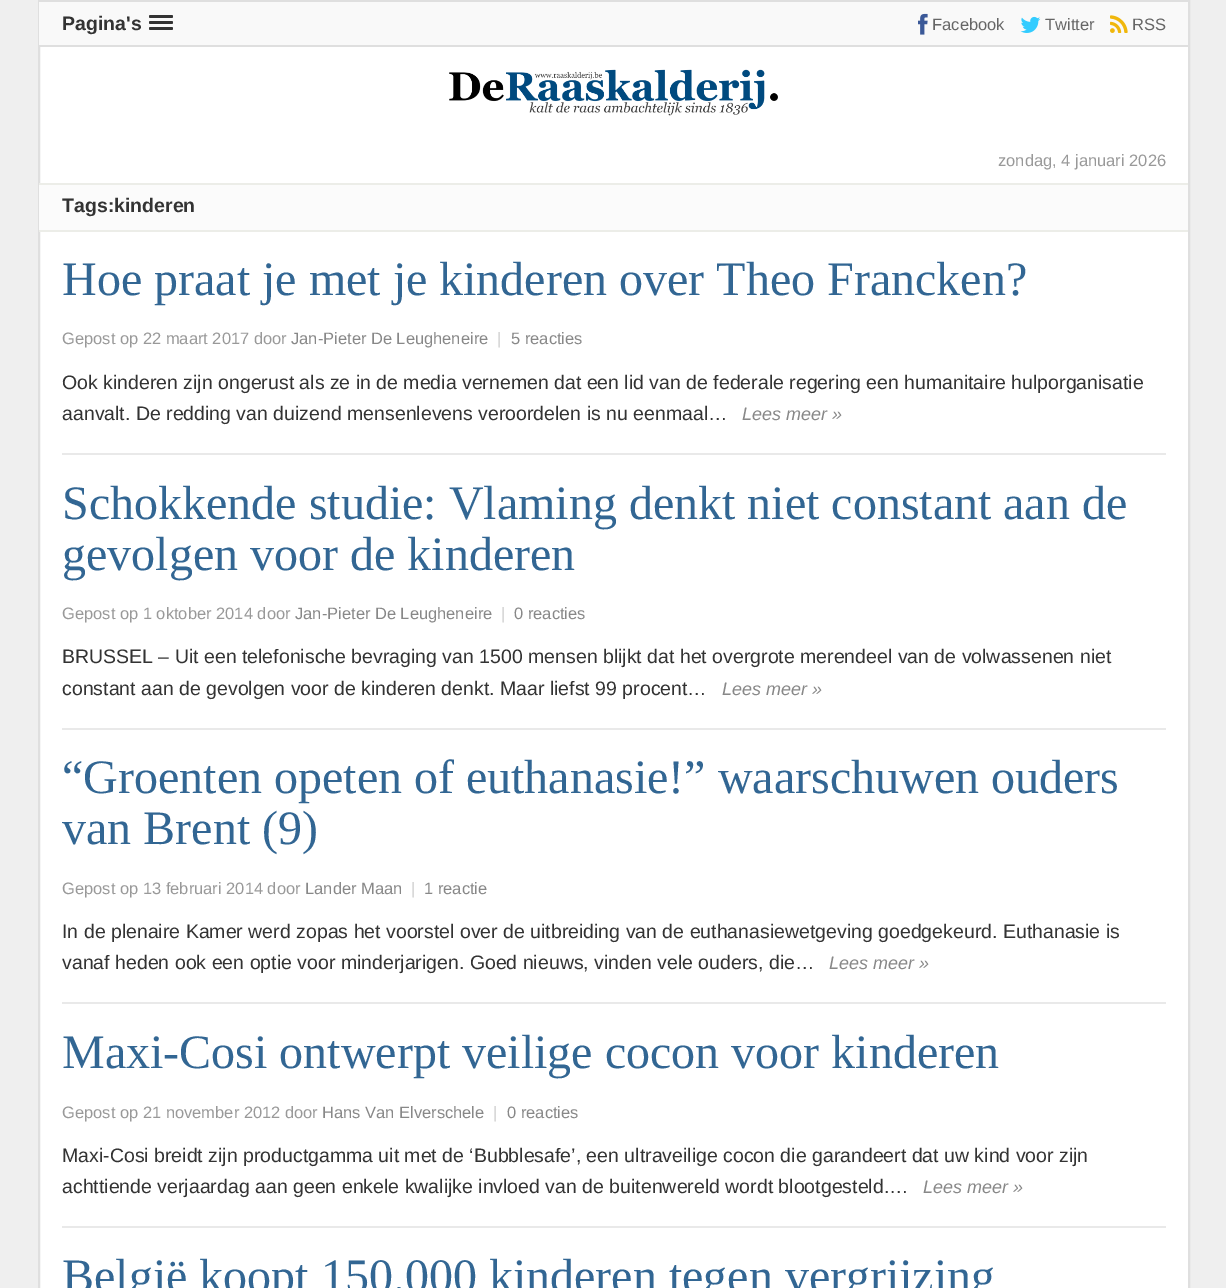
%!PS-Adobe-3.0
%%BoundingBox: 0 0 1226 1288
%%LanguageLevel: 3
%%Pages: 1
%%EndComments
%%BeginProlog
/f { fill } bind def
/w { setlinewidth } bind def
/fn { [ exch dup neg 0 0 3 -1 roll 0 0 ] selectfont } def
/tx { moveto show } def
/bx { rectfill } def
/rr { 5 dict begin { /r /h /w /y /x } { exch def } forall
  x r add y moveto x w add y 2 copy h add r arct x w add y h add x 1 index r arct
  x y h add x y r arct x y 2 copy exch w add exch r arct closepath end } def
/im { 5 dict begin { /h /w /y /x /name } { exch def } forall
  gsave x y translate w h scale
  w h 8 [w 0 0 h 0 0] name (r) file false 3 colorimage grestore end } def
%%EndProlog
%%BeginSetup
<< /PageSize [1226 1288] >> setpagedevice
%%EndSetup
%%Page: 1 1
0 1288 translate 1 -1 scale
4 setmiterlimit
0.937 setgray
0 0 1226 1288 bx
1 setgray
40 47 1148 1241 bx
0.875 setgray
2 w
39 1 1150 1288 rectstroke
0.976 setgray
39 2 1149 43 bx
0.875 setgray
39 45 1149 2 bx
/LiberationSans-Bold 19.5 fn
0.2 setgray
(Pagina's) 62 30 tx
149 15 24 3 1.5 rr f
149 21 24 3 1.5 rr f
149 27 24 3 1.5 rr f
(image0.raw) 918 13 10 22 im
/LiberationSans-Regular 16.5 fn
0.4 setgray
(Facebook) 932 30 tx
(image1.raw) 1020 16 21 17 im
(Twitter) 1045 30 tx
(image2.raw) 1110 15 18 18 im
(RSS) 1132 30 tx
(image3.raw) 449 69 329 47 im
0.6 setgray
(zondag, 4 januari 2026) 998 166 tx
0.925 0.929 0.91 setrgbcolor
39 183 1149 2 bx
0.984 setgray
39 185 1149 45 bx
0.925 0.929 0.91 setrgbcolor
39 230 1149 2 bx
/LiberationSans-Bold 19.5 fn
0.2 setgray
(Tags:kinderen) 62 212 tx
0.914 setgray
62 453 1104 2 bx
/LiberationSerif-Regular 48 fn
0.196 0.4 0.576 setrgbcolor
(Hoe praat je met je kinderen over Theo Francken?) 62 295 tx
/LiberationSans-Regular 16.5 fn
0.6 setgray
(Gepost op 22 maart 2017 door) 62 344 tx
0.533 setgray
(Jan-Pieter De Leugheneire) 291 344 tx
0.8 setgray
(|) 497 344 tx
0.533 setgray
(5 reacties) 511 344 tx
/LiberationSans-Regular 19.5 fn
0.2 setgray
(Ook kinderen zijn ongerust als ze in de media vernemen dat een lid van de federale regering een humanitaire hulporganisatie) 62 389 tx
(aanvalt. De redding van duizend mensenlevens veroordelen is nu eenmaal…) 62 420 tx
/LiberationSans-Italic 18 fn
0.533 setgray
(Lees meer ») 742 420 tx
0.914 setgray
62 728 1104 2 bx
/LiberationSerif-Regular 48 fn
0.196 0.4 0.576 setrgbcolor
(Schokkende studie: Vlaming denkt niet constant aan de) 62 519 tx
(gevolgen voor de kinderen) 62 570 tx
/LiberationSans-Regular 16.5 fn
0.6 setgray
(Gepost op 1 oktober 2014 door) 62 619 tx
0.533 setgray
(Jan-Pieter De Leugheneire) 295 619 tx
0.8 setgray
(|) 501 619 tx
0.533 setgray
(0 reacties) 514 619 tx
/LiberationSans-Regular 19.5 fn
0.2 setgray
(BRUSSEL – Uit een telefonische bevraging van 1500 mensen blijkt dat het overgrote merendeel van de volwassenen niet) 62 663 tx
(constant aan de gevolgen voor de kinderen denkt. Maar liefst 99 procent…) 62 695 tx
/LiberationSans-Italic 18 fn
0.533 setgray
(Lees meer ») 722 695 tx
0.914 setgray
62 1002 1104 2 bx
/LiberationSerif-Regular 48 fn
0.196 0.4 0.576 setrgbcolor
(“Groenten opeten of euthanasie!” waarschuwen ouders) 62 793 tx
(van Brent \(9\)) 62 844 tx
/LiberationSans-Regular 16.5 fn
0.6 setgray
(Gepost op 13 februari 2014 door) 62 894 tx
0.533 setgray
(Lander Maan) 305 894 tx
0.8 setgray
(|) 411 894 tx
0.533 setgray
(1 reactie) 424 894 tx
/LiberationSans-Regular 19.5 fn
0.2 setgray
(In de plenaire Kamer werd zopas het voorstel over de uitbreiding van de euthanasiewetgeving goedgekeurd. Euthanasie is) 62 938 tx
(vanaf heden ook een optie voor minderjarigen. Goed nieuws, vinden vele ouders, die…) 62 969 tx
/LiberationSans-Italic 18 fn
0.533 setgray
(Lees meer ») 829 969 tx
0.914 setgray
62 1226 1104 2 bx
/LiberationSerif-Regular 48 fn
0.196 0.4 0.576 setrgbcolor
(Maxi-Cosi ontwerpt veilige cocon voor kinderen) 62 1068 tx
/LiberationSans-Regular 16.5 fn
0.6 setgray
(Gepost op 21 november 2012 door) 62 1118 tx
0.533 setgray
(Hans Van Elverschele) 322 1118 tx
0.8 setgray
(|) 493 1118 tx
0.533 setgray
(0 reacties) 507 1118 tx
/LiberationSans-Regular 19.5 fn
0.2 setgray
(Maxi-Cosi breidt zijn productgamma uit met de ‘Bubblesafe’, een ultraveilige cocon die garandeert dat uw kind voor zijn) 62 1162 tx
(achttiende verjaardag aan geen enkele kwalijke invloed van de buitenwereld wordt blootgesteld.…) 62 1193 tx
/LiberationSans-Italic 18 fn
0.533 setgray
(Lees meer ») 923 1193 tx
/LiberationSerif-Regular 48 fn
0.196 0.4 0.576 setrgbcolor
(België koopt 150.000 kinderen tegen vergrijzing) 62 1292 tx
showpage
%%EOF
